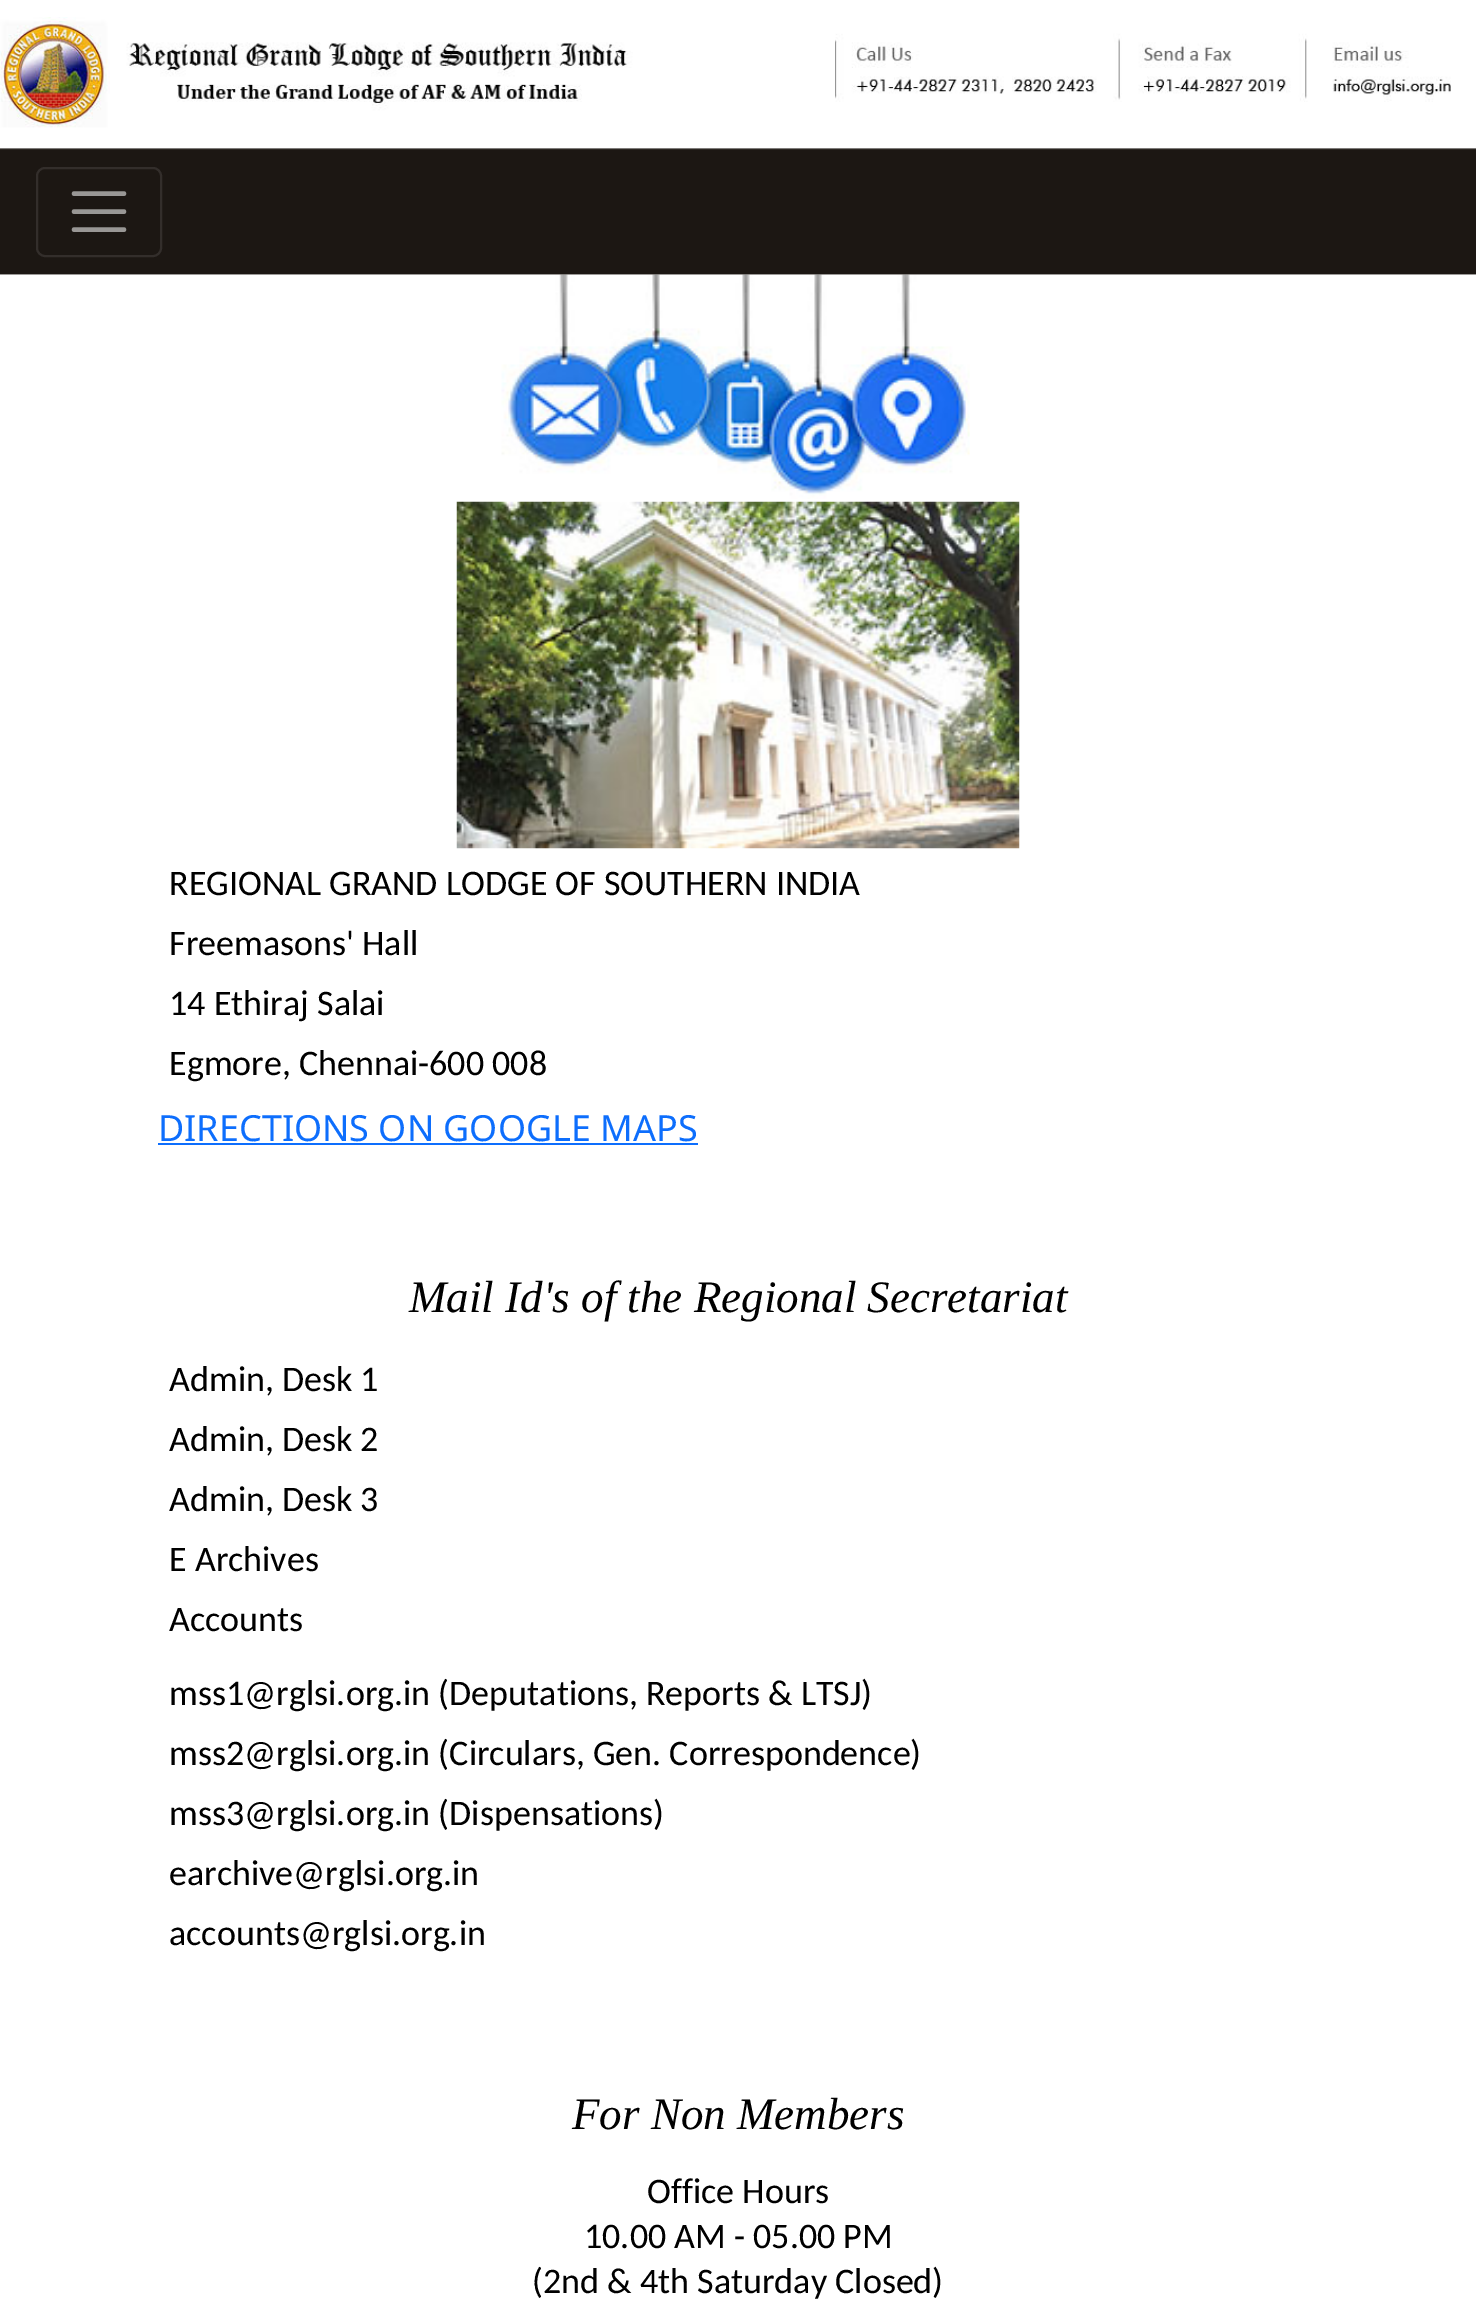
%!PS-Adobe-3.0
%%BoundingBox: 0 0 1476 2314
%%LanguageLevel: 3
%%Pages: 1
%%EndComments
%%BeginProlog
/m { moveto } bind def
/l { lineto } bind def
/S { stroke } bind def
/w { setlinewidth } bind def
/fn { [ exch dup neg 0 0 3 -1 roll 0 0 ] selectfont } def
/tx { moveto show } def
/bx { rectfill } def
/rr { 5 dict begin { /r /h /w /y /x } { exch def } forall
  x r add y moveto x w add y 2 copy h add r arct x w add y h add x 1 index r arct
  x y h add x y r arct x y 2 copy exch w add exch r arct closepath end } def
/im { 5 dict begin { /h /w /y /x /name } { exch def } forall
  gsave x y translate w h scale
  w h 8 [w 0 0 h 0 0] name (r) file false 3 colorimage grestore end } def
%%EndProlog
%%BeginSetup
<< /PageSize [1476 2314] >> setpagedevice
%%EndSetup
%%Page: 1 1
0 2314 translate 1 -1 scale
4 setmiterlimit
1 setgray
0 0 1476 2314 bx
(image0.raw) 0 17 1451 111 im
(image2.raw) 501 274 469 225 im
(image1.raw) 0 148 1476 127 im
0.2 0.18 0.169 setrgbcolor
2 w
37 168 124 88 8 rr S
0.6 0.592 0.584 setrgbcolor
4.5 w
1 setlinecap
74 193.5 m 124 193.5 l 74 211.5 m 124 211.5 l 74 229.5 m 124 229.5 l S
(image3.raw) 456 501 564 348 im
/Carlito-Regular 36 fn
0 setgray
(REGIONAL GRAND LODGE OF SOUTHERN INDIA) 169 895 tx
(Freemasons' Hall) 169 955 tx
(14 Ethiraj Salai) 169 1015 tx
(Egmore, Chennai-600 008) 169 1075 tx
/NotoSans-Regular 36 fn
0.051 0.431 0.992 setrgbcolor
(DIRECTIONS ON GOOGLE MAPS) 158 1141 tx
158 1143 540 2 bx
/LiberationSerif-Italic 45 fn
0 setgray
(Mail Id's of the Regional Secretariat) 409 1312 tx
/Carlito-Regular 36 fn
(Admin, Desk 1) 169 1391 tx
(Admin, Desk 2) 169 1451 tx
(Admin, Desk 3) 169 1511 tx
(E Archives) 169 1571 tx
(Accounts) 169 1631 tx
(mss1@rglsi.org.in \(Deputations, Reports & LTSJ\)) 169 1705 tx
(mss2@rglsi.org.in \(Circulars, Gen. Correspondence\)) 169 1765 tx
(mss3@rglsi.org.in \(Dispensations\)) 169 1825 tx
(earchive@rglsi.org.in) 169 1885 tx
(accounts@rglsi.org.in) 169 1945 tx
/LiberationSerif-Italic 45 fn
(For Non Members) 572 2129 tx
/Carlito-Regular 36 fn
(Office Hours) 647 2203 tx
(10.00 AM - 05.00 PM) 584 2248 tx
(\(2nd & 4th Saturday Closed\)) 532 2293 tx
showpage
%%EOF
